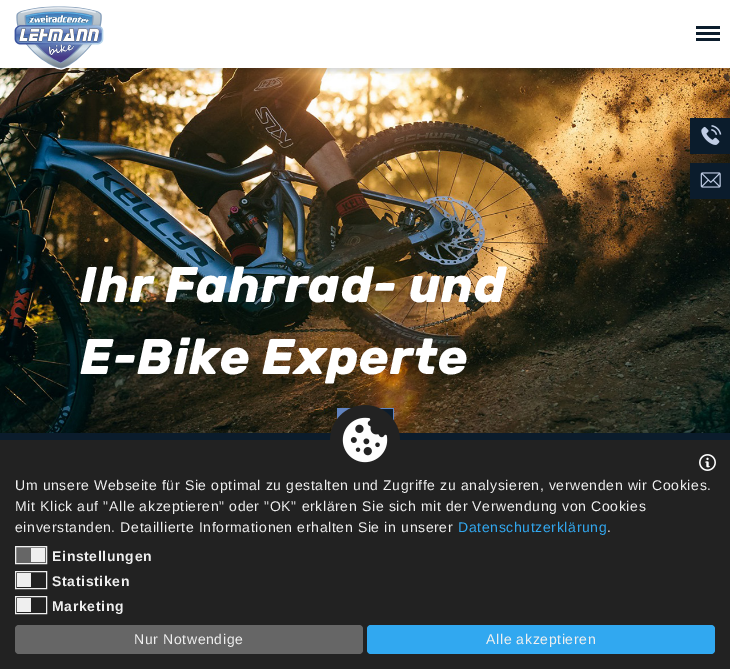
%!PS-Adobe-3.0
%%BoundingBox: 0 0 730 669
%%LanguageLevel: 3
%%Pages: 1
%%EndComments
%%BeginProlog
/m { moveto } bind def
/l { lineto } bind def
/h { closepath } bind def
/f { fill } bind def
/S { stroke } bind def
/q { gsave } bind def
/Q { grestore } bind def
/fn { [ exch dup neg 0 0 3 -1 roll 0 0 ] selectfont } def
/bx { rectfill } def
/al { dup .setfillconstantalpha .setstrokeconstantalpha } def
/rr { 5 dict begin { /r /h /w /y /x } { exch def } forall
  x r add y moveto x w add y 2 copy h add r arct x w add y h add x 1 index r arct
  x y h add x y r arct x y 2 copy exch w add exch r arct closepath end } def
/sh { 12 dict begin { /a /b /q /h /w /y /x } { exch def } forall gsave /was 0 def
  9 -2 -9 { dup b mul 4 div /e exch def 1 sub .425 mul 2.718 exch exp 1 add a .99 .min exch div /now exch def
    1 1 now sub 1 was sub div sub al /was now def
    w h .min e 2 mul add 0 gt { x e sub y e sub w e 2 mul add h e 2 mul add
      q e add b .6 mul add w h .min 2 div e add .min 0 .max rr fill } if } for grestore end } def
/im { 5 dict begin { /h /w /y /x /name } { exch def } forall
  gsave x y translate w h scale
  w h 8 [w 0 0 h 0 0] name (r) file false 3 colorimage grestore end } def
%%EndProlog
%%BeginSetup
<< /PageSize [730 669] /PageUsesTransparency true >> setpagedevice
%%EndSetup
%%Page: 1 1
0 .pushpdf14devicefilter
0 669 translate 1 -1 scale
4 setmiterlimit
1 setgray
0 0 730 669 bx
(image3.raw) 0 68 730 365 im
q
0 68 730 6 rectclip
0 setgray
0 3 730 68 0 2.5 0.16 sh
Q
(image0.raw) 14 6 90 64 im
0.043 0.11 0.173 setrgbcolor
696 32 24 3 bx
696 26 24 3 bx
696 38 24 3 bx
690 118 40 36 bx
(image1.raw) 701 125 21 20 im
690 163 40 36 bx
(image2.raw) 700 172 21 16 im
/Rubik-BoldItalic 50 fn
1 setgray
80 302 m 0.65 0 (Ihr Fahrrad- und) ashow
80 374 m 0.65 0 (E-Bike Experte) ashow
0.38 0.514 0.749 setrgbcolor
337 408 14 11 bx
0.043 0.11 0.173 setrgbcolor
381 409 12 10 bx
0.38 0.514 0.749 setrgbcolor
379.5 408.5 14 14 rectstroke
0.043 0.11 0.173 setrgbcolor
0 433 730 7 bx
0.133 setgray
0 440 730 229 bx
(image4.raw) 330 405 70 58 im
(image5.raw) 699 454 17 17 im
/LiberationSans-Regular 14 fn
0.937 setgray
15 490 m 0.65 0 (Um unsere Webseite für Sie optimal zu gestalten und Zugriffe zu analysieren, verwenden wir Cookies.) ashow
15 511 m 0.65 0 (Mit Klick auf "Alle akzeptieren" oder "OK" erklären Sie sich mit der Verwendung von Cookies) ashow
15 532 m 0.65 0 (einverstanden. Detaillierte Informationen erhalten Sie in unserer) ashow
0.192 0.659 0.941 setrgbcolor
458 532 m 0.65 0 (Datenschutzerklärung) ashow
0.937 setgray
607 532 m 0.65 0 (.) ashow
0.4 setgray
15.5 546.5 m 46.5 546.5 l 46.5 563.5 l 15.5 563.5 l h q f Q
0.937 setgray
S
31 548 14 14 bx
/LiberationSans-Bold 14 fn
52 561 m 0.65 0 (Einstellungen) ashow
15.5 571.5 31 17 rectstroke
17 573 14 14 bx
52 586 m 0.65 0 (Statistiken) ashow
15.5 596.5 31 17 rectstroke
17 598 14 14 bx
52 611 m 0.65 0 (Marketing) ashow
0.4 setgray
15 625 348 29 4 rr f
/LiberationSans-Regular 14 fn
0.937 setgray
134 644 m 0.65 0 (Nur Notwendige) ashow
0.192 0.659 0.941 setrgbcolor
367 625 348 29 4 rr f
0.937 setgray
486 644 m 0.65 0 (Alle akzeptieren) ashow
.poppdf14devicefilter showpage
%%EOF
